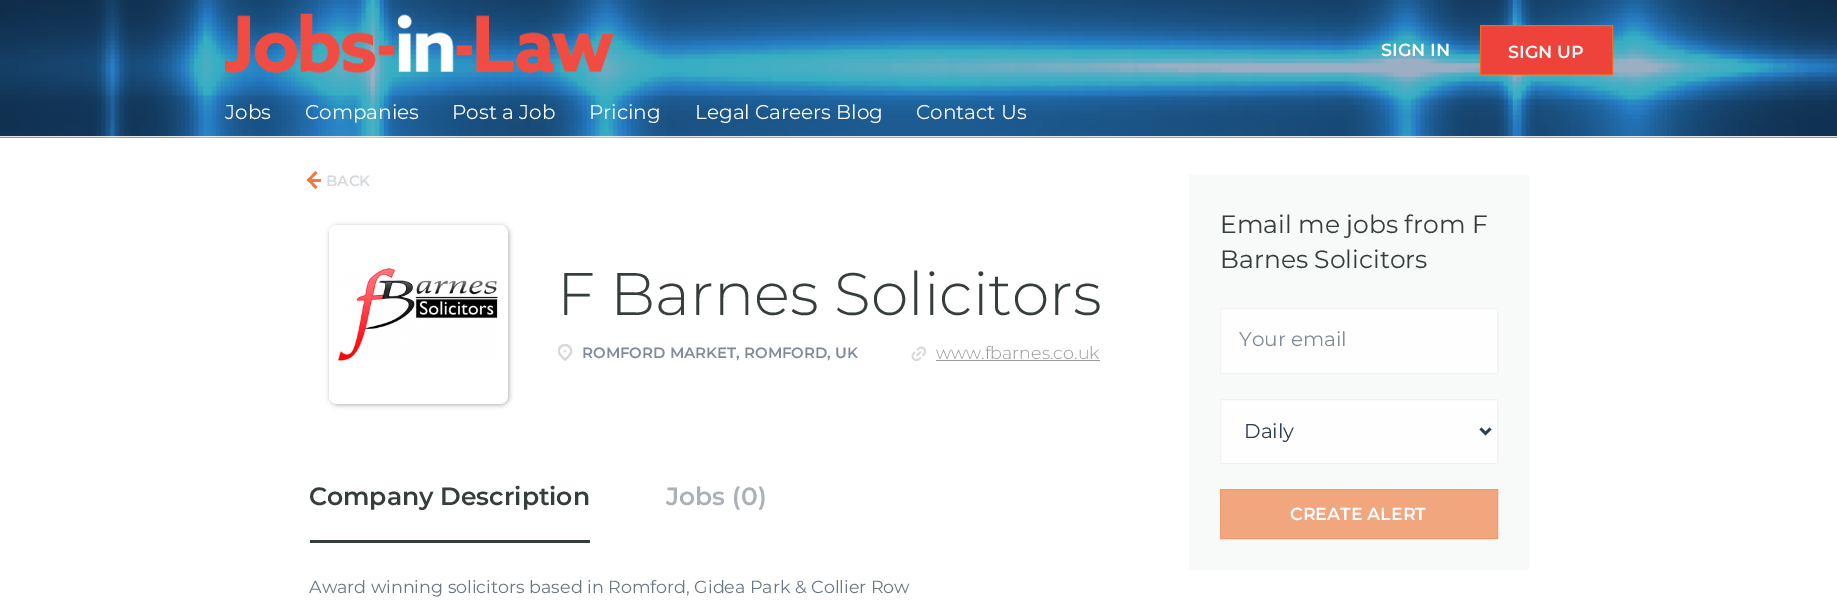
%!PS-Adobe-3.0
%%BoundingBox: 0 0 1837 600
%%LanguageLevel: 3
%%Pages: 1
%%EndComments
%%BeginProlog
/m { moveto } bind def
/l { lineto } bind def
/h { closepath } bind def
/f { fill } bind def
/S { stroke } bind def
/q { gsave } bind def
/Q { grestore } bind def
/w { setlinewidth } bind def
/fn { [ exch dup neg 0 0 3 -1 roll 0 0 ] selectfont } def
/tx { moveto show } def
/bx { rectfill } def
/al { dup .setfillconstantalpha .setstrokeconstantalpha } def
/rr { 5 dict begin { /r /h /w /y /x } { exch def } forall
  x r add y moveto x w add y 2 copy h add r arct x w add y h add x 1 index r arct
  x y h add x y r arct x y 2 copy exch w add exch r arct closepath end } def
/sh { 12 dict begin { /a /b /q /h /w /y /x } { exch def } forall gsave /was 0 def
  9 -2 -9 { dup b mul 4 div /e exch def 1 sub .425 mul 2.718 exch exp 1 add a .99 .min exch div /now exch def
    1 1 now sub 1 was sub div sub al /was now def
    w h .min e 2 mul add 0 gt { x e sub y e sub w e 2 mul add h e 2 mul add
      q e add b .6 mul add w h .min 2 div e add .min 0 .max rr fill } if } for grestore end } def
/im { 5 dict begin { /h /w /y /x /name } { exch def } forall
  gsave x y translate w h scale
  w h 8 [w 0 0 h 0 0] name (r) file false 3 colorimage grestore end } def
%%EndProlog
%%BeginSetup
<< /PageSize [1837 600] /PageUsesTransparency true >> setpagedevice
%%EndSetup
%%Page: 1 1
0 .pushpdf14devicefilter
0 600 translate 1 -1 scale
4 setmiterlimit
1 setgray
0 0 1837 600 bx
(image0.raw) 0 0 1837 138 im
0.894 0.902 0.91 setrgbcolor
0 136 1837 1 bx
(image1.raw) 225 13 389 60 im
/Montserrat-SemiBold 17.5 fn
0.992 setgray
(SIGN IN) 1381 56 tx
0.933 0.263 0.231 setrgbcolor
1480.5 25.5 m 1612.5 25.5 l 1612.5 74.5 l 1480.5 74.5 l h q f Q
0.925 0.416 0.141 setrgbcolor
S
0.992 setgray
(SIGN UP) 1508 58 tx
/Montserrat-Regular 20 fn
(Jobs) 225 119 tx
(Companies) 305 119 tx
(Post a Job) 452 119 tx
(Pricing) 589 119 tx
(Legal Careers Blog) 695 119 tx
(Contact Us) 916 119 tx
0.933 0.478 0.231 setrgbcolor
308.5 178 m 317.5 187 l 315.5 189 l 307 180 l h f
315.5 171 m 317.5 173 l 308.5 182 l 307 180 l h f
/Montserrat-SemiBold 15 fn
0.835 0.847 0.863 setrgbcolor
(BACK) 326 186 tx
0.933 0.478 0.231 setrgbcolor
310 179 11 3 bx
0 setgray
330 226 179 179 8 2.5 0.3 sh
1 setgray
329 225 179 179 8 rr f
(image2.raw) 337 268 161 93 im
/Montserrat-Light 60 fn
0.212 0.239 0.239 setrgbcolor
(F Barnes Solicitors) 557 315 tx
(image3.raw) 558 344 15 17 im
/Montserrat-SemiBold 15 fn
0.506 0.545 0.588 setrgbcolor
(ROMFORD MARKET, ROMFORD, UK) 582 358 tx
(image4.raw) 911 346 15 15 im
/Montserrat-Light 17.5 fn
0.6 setgray
(www.fbarnes.co.uk) 936 359 tx
936 360 164 1 bx
0.212 0.239 0.239 setrgbcolor
310 540 280 3 bx
/Montserrat-SemiBold 25 fn
(Company Description) 309 505 tx
0.671 0.694 0.725 setrgbcolor
(Jobs \(0\)) 666 505 tx
/Montserrat-Regular 17.5 fn
0.42 0.467 0.522 setrgbcolor
(Award winning solicitors based in Romford, Gidea Park & Collier Row) 309 593 tx
0.973 0.976 0.976 setrgbcolor
1189 175 340 395 bx
/Montserrat-Regular 25 fn
0.212 0.239 0.239 setrgbcolor
(Email me jobs from F) 1220 233 tx
(Barnes Solicitors) 1220 268 tx
0.996 setgray
1220.5 308.5 m 1497.5 308.5 l 1497.5 373.5 l 1220.5 373.5 l h q f Q
0.949 setgray
S
/Montserrat-Regular 20 fn
0.506 0.545 0.588 setrgbcolor
(Your email) 1239 346 tx
0.996 setgray
1220.5 399.5 m 1497.5 399.5 l 1497.5 463.5 l 1220.5 463.5 l h q f Q
0.949 setgray
S
0.176 0.243 0.314 setrgbcolor
2.5 w
1480.5 428.5 m 1485.5 433.5 l 1490.5 428.5 l S
(Daily) 1244 438 tx
0.949 0.651 0.494 setrgbcolor
1220.5 489.5 m 1497.5 489.5 l 1497.5 538.5 l 1220.5 538.5 l h q f Q
0.941 0.612 0.435 setrgbcolor
1 w
S
/Montserrat-SemiBold 17.5 fn
0.992 setgray
(CREATE ALERT) 1290 520 tx
.poppdf14devicefilter showpage
%%EOF
